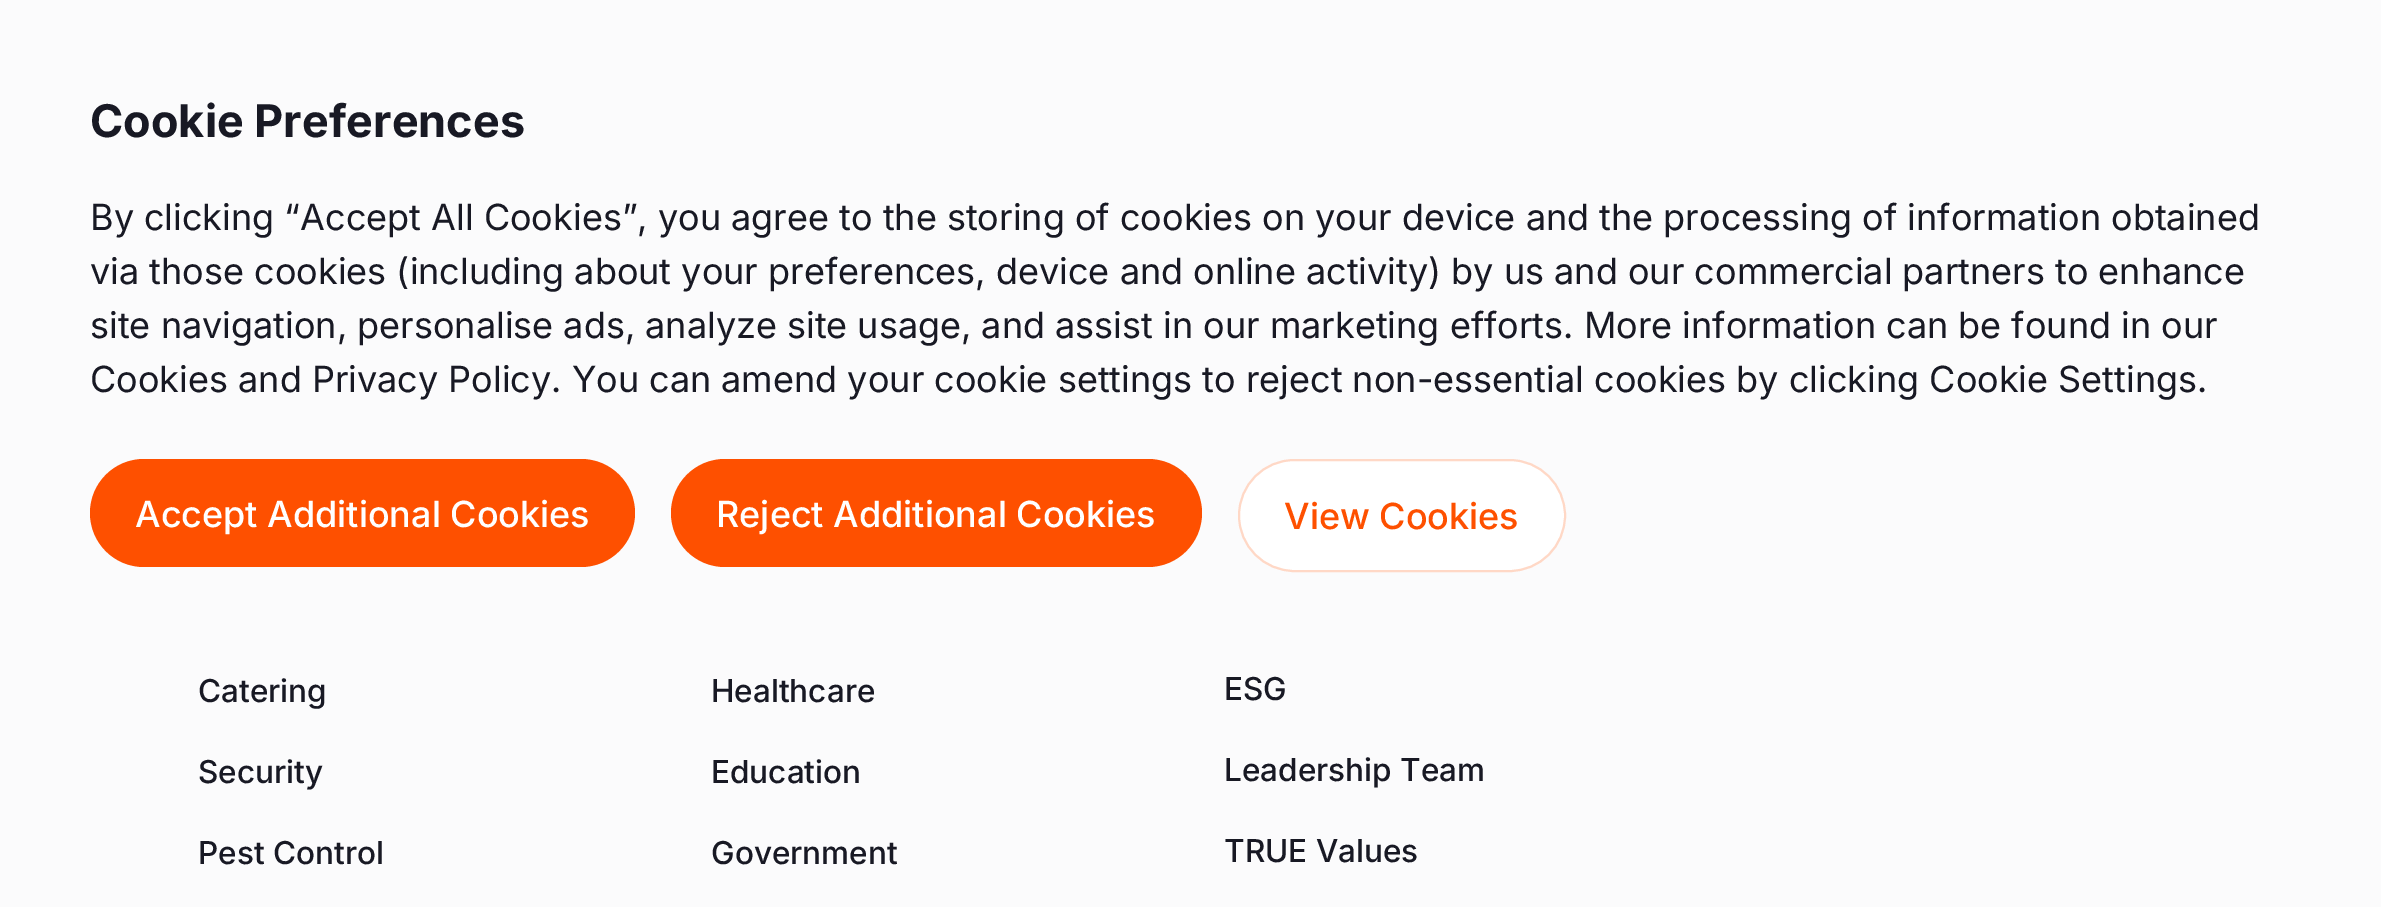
%!PS-Adobe-3.0
%%BoundingBox: 0 0 2381 907
%%LanguageLevel: 3
%%Pages: 1
%%EndComments
%%BeginProlog
/f { fill } bind def
/S { stroke } bind def
/q { gsave } bind def
/Q { grestore } bind def
/w { setlinewidth } bind def
/fn { [ exch dup neg 0 0 3 -1 roll 0 0 ] selectfont } def
/tx { moveto show } def
/bx { rectfill } def
/rr { 5 dict begin { /r /h /w /y /x } { exch def } forall
  x r add y moveto x w add y 2 copy h add r arct x w add y h add x 1 index r arct
  x y h add x y r arct x y 2 copy exch w add exch r arct closepath end } def
%%EndProlog
%%BeginSetup
<< /PageSize [2381 907] >> setpagedevice
%%EndSetup
%%Page: 1 1
0 907 translate 1 -1 scale
4 setmiterlimit
0.984 0.984 0.988 setrgbcolor
0 0 2381 907 bx
/Inter-Bold 45 fn
0.094 0.098 0.141 setrgbcolor
(Cookie Preferences) 90 137 tx
/Inter-Regular 36 fn
(By clicking “Accept All Cookies”, you agree to the storing of cookies on your device and the processing of information obtained) 90 230 tx
(via those cookies \(including about your preferences, device and online activity\) by us and our commercial partners to enhance) 90 284 tx
(site navigation, personalise ads, analyze site usage, and assist in our marketing efforts. More information can be found in our) 90 338 tx
(Cookies and Privacy Policy. You can amend your cookie settings to reject non-essential cookies by clicking Cookie Settings.) 90 392 tx
0.996 0.314 0 setrgbcolor
90 459 545 108 54 rr f
/Inter-Medium 36 fn
1 setgray
(Accept Additional Cookies) 135 527 tx
0.996 0.314 0 setrgbcolor
671 459 531 108 54 rr f
1 setgray
(Reject Additional Cookies) 716 527 tx
1239 460 326 111 55.5 rr q f Q
1 0.847 0.776 setrgbcolor
2 w
S
0.996 0.314 0 setrgbcolor
(View Cookies) 1284 529 tx
/Inter-Medium 31.5 fn
0.094 0.098 0.141 setrgbcolor
(Catering) 198 702 tx
(Security) 198 783 tx
(Pest Control) 198 864 tx
(Healthcare) 711 702 tx
(Education) 711 783 tx
(Government) 711 864 tx
(ESG) 1224 700 tx
(Leadership Team) 1224 781 tx
(TRUE Values) 1224 862 tx
showpage
%%EOF
